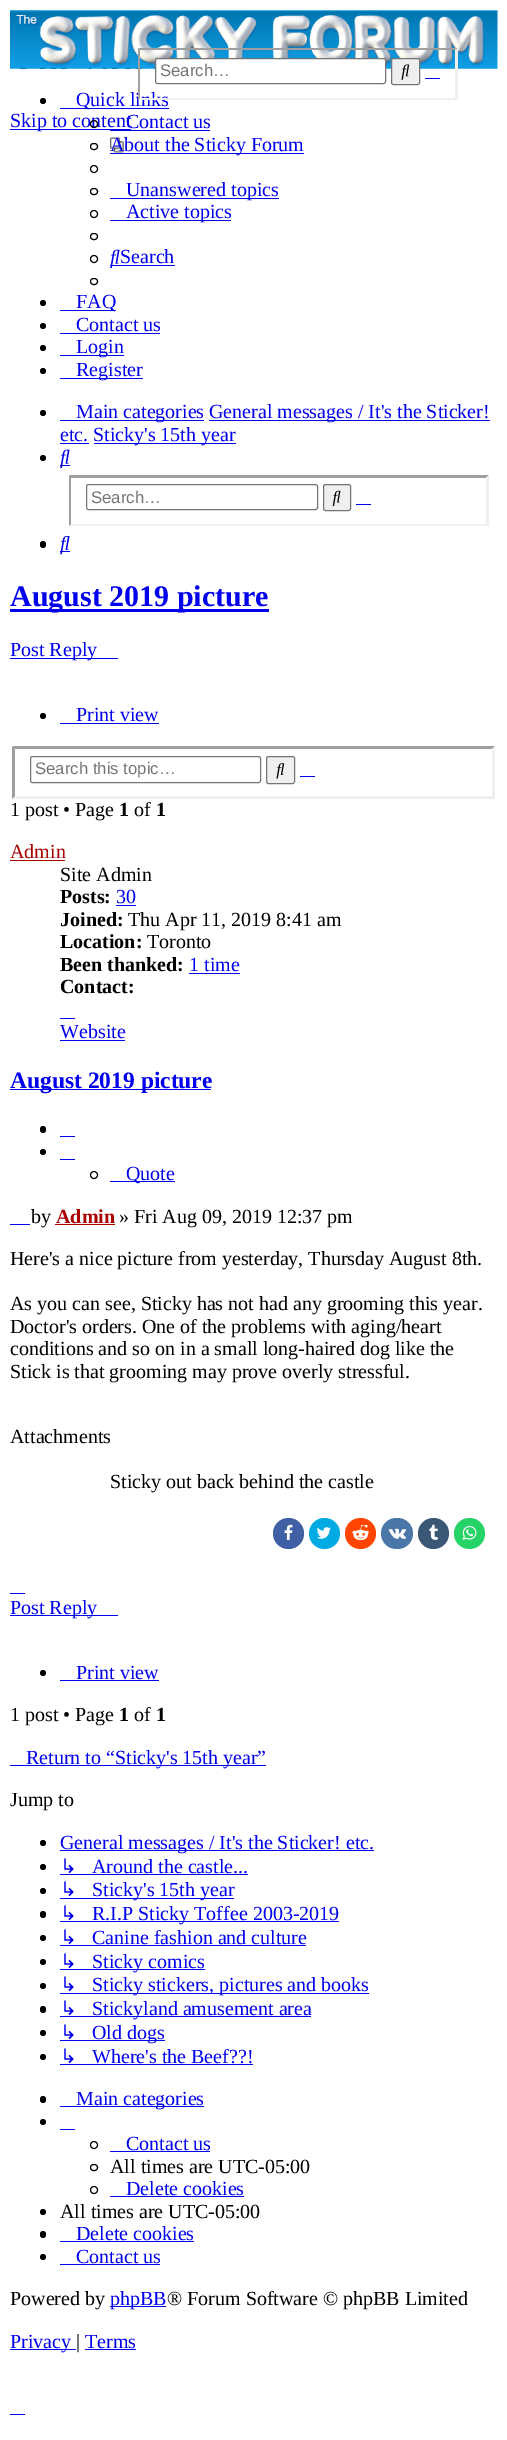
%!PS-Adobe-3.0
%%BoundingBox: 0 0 507 2440
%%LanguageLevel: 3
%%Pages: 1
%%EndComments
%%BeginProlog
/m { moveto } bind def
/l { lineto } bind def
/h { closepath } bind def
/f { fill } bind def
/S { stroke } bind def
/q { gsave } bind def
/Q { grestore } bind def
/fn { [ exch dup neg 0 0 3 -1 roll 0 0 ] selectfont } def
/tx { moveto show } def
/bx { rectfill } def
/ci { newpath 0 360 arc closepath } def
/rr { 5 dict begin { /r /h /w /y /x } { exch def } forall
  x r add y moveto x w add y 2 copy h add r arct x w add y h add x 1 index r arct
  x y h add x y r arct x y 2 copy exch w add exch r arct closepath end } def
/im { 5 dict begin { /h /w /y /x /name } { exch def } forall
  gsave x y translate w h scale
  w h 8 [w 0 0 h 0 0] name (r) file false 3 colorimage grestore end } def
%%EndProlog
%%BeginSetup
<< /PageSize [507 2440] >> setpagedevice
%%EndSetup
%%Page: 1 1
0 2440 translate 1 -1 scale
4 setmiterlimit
1 setgray
0 0 507 2440 bx
(image0.raw) 10 10 488 59 im
0.624 setgray
138 48 m 458 48 l 455 50 l 140 50 l h f
0.937 setgray
458 48 m 458 100 l 455 98 l 455 50 l h f
0 0 0.933 setrgbcolor
60 108 109 1 bx
/LiberationSerif-Regular 20 fn
(Quick links) 76 106 tx
0.937 setgray
458 100 m 138 100 l 140 98 l 455 98 l h f
0.624 setgray
138 100 m 138 48 l 140 50 l 140 98 l h f
1 setgray
155.5 58.5 230 25 2 rr q f Q
0.463 setgray
S
/LiberationSans-Regular 16.75 fn
0.459 setgray
(Search…) 160 76 tx
0.937 setgray
391.5 58.5 28 26 2 rr q f Q
0.463 setgray
S
(image1.raw) 401 64 9 16 im
0 0 0.933 setrgbcolor
425 78 15 1 bx
10 129 121 1 bx
/LiberationSerif-Regular 20 fn
(Skip to content) 10 127 tx
0 setgray
43 101 3 ci f
94 124 3.5 ci S
0 0 0.933 setrgbcolor
(Contact us) 126 128 tx
110 130 100 1 bx
(image2.raw) 110 137 14 16 im
0 setgray
90.5 143.5 7 6 3 rr S
0 0 0.933 setrgbcolor
110 153 194 1 bx
(About the Sticky Forum) 110 151 tx
0 setgray
94 169 3.5 ci S
90.5 188.5 7 6 3 rr S
0 0 0.933 setrgbcolor
110 198 169 1 bx
(Unanswered topics) 126 196 tx
0 setgray
94 214 3.5 ci S
0 0 0.933 setrgbcolor
110 220 121 1 bx
(Active topics) 126 218 tx
0 setgray
90.5 233.5 7 6 3 rr S
94 259 3.5 ci S
0 0 0.933 setrgbcolor
110 265 65 1 bx
(image3.raw) 110 249 10 19 im
(Search) 120 263 tx
0 setgray
90.5 278.5 7 6 3 rr S
43 303 3 ci f
0 0 0.933 setrgbcolor
60 310 55 1 bx
(FAQ) 76 308 tx
0 setgray
43 326 3 ci f
0 0 0.933 setrgbcolor
(Contact us) 76 331 tx
60 333 100 1 bx
0 setgray
43 348 3 ci f
0 0 0.933 setrgbcolor
60 355 64 1 bx
(Login) 76 353 tx
0 setgray
43 371 3 ci f
0 0 0.933 setrgbcolor
60 378 83 1 bx
(Register) 76 376 tx
0 setgray
43 413 3 ci f
0 0 0.933 setrgbcolor
60 420 144 1 bx
(Main categories) 76 418 tx
209 420 281 1 bx
(General messages / It's the Sticker!) 209 418 tx
(etc.) 60 441 tx
60 443 29 1 bx
94 443 142 1 bx
(Sticky's 15th year) 93 441 tx
0 setgray
43 458 3 ci f
0 0 0.933 setrgbcolor
60 465 10 1 bx
(image3.raw) 60 449 10 19 im
0.624 setgray
69 475 m 489 475 l 486 478 l 71 478 l h f
0.937 setgray
489 475 m 489 526 l 486 524 l 486 478 l h f
489 526 m 69 526 l 71 524 l 486 524 l h f
0.624 setgray
69 526 m 69 475 l 71 478 l 71 524 l h f
0.463 setgray
86.5 484.5 231 25 2 rr S
/LiberationSans-Regular 16.75 fn
0.459 setgray
(Search…) 91 503 tx
0.937 setgray
323.5 484.5 27 26 2 rr q f Q
0.463 setgray
S
(image4.raw) 332 490 9 17 im
0 0 0.933 setrgbcolor
356 504 15 1 bx
0 setgray
40 541 6 7 3 rr f
0 0 0.933 setrgbcolor
60 551 10 1 bx
(image5.raw) 60 535 10 20 im
10 609 259 3 bx
/LiberationSerif-Bold 30 fn
(August 2019 picture) 10 606 tx
10 658 108 1 bx
/LiberationSerif-Regular 20 fn
(Post Reply) 10 656 tx
0 setgray
43 716 3 ci f
0 0 0.933 setrgbcolor
(Print view) 76 721 tx
60 723 99 1 bx
0.624 setgray
12 746 m 495 746 l 492 749 l 15 749 l h f
0.937 setgray
495 746 m 495 799 l 492 796 l 492 749 l h f
495 799 m 12 799 l 15 796 l 492 796 l h f
0.624 setgray
12 799 m 12 746 l 15 749 l 15 796 l h f
0.463 setgray
30.5 756.5 230 26 2 rr S
/LiberationSans-Regular 16.75 fn
0.459 setgray
(Search this topic…) 35 774 tx
0.937 setgray
266.5 756.5 28 27 2 rr q f Q
0.463 setgray
S
(image6.raw) 276 763 9 16 im
0 0 0.933 setrgbcolor
300 776 15 1 bx
/LiberationSerif-Regular 20 fn
0 setgray
(1 post • Page) 10 816 tx
/LiberationSerif-Bold 20 fn
(1) 119 816 tx
/LiberationSerif-Regular 20 fn
(of) 134 816 tx
/LiberationSerif-Bold 20 fn
(1) 156 816 tx
/LiberationSerif-Regular 20 fn
0.667 0 0 setrgbcolor
(Admin) 10 858 tx
10 860 55 1 bx
0 setgray
(Site Admin) 60 881 tx
/LiberationSerif-Bold 20 fn
(Posts:) 60 903 tx
/LiberationSerif-Regular 20 fn
0 0 0.933 setrgbcolor
(30) 116 903 tx
116 905 20 1 bx
/LiberationSerif-Bold 20 fn
0 setgray
(Joined:) 60 926 tx
/LiberationSerif-Regular 20 fn
(Thu Apr 11, 2019 8:41 am) 128 926 tx
/LiberationSerif-Bold 20 fn
(Location:) 60 948 tx
/LiberationSerif-Regular 20 fn
(Toronto) 147 948 tx
/LiberationSerif-Bold 20 fn
(Been thanked:) 60 971 tx
/LiberationSerif-Regular 20 fn
0 0 0.933 setrgbcolor
(1 time) 189 971 tx
189 973 51 1 bx
/LiberationSerif-Bold 20 fn
0 setgray
(Contact:) 60 993 tx
0 0 0.933 setrgbcolor
60 1018 15 1 bx
/LiberationSerif-Regular 20 fn
(Website) 60 1038 tx
60 1040 65 1 bx
10 1089 201 1 bx
/LiberationSerif-Bold 23.5 fn
(August 2019 picture) 10 1088 tx
0 setgray
40 1126 6 7 3 rr f
0 0 0.933 setrgbcolor
60 1136 15 1 bx
0 setgray
43 1152 3 ci f
0 0 0.933 setrgbcolor
60 1159 15 1 bx
0 setgray
94 1175 3.5 ci S
0 0 0.933 setrgbcolor
110 1181 65 1 bx
/LiberationSerif-Regular 20 fn
(Quote) 126 1180 tx
10 1224 20 1 bx
0 setgray
(by) 31 1223 tx
0.667 0 0 setrgbcolor
55 1224 60 1 bx
/LiberationSerif-Bold 20 fn
(Admin) 56 1223 tx
/LiberationSerif-Regular 20 fn
0 setgray
(» Fri Aug 09, 2019 12:37 pm) 119 1223 tx
(Here's a nice picture from yesterday, Thursday August 8th.) 10 1265 tx
(As you can see, Sticky has not had any grooming this year.) 10 1310 tx
(Doctor's orders. One of the problems with aging/heart) 10 1333 tx
(conditions and so on in a small long-haired dog like the) 10 1355 tx
(Stick is that grooming may prove overly stressful.) 10 1378 tx
(Attachments) 10 1443 tx
(Sticky out back behind the castle) 110 1488 tx
0.251 0.376 0.647 setrgbcolor
288.5 1533.5 15.5 ci f
(image7.raw) 284 1524 9 16 im
0 0.671 0.89 setrgbcolor
324.5 1533.5 15.5 ci f
(image8.raw) 316 1527 15 12 im
1 0.271 0 setrgbcolor
360.5 1533.5 15.5 ci f
(image9.raw) 352 1524 17 17 im
0.29 0.463 0.659 setrgbcolor
381 1518 32 31 15.5 rr f
(image10.raw) 388 1528 19 11 im
0.227 0.345 0.463 setrgbcolor
433.5 1533.5 15.5 ci f
(image11.raw) 429 1524 9 16 im
0.145 0.827 0.4 setrgbcolor
469.5 1533.5 15.5 ci f
(image12.raw) 462 1525 15 15 im
0 0 0.933 setrgbcolor
10 1593 15 1 bx
10 1615 108 1 bx
(Post Reply) 10 1614 tx
0 setgray
43 1673 3 ci f
0 0 0.933 setrgbcolor
(Print view) 76 1679 tx
60 1680 99 1 bx
0 setgray
(1 post • Page) 10 1721 tx
/LiberationSerif-Bold 20 fn
(1) 119 1721 tx
/LiberationSerif-Regular 20 fn
(of) 134 1721 tx
/LiberationSerif-Bold 20 fn
(1) 156 1721 tx
0 0 0.933 setrgbcolor
10 1765 256 1 bx
/LiberationSerif-Regular 20 fn
(Return to “Sticky's 15th year”) 26 1764 tx
0 setgray
(Jump to) 10 1806 tx
43 1843 3 ci f
0 0 0.933 setrgbcolor
60 1850 314 1 bx
(General messages / It's the Sticker! etc.) 60 1849 tx
0 setgray
43 1867 3 ci f
/DejaVuSans-Regular 20 fn
0 0 0.933 setrgbcolor
(↳) 60 1873 tx
/LiberationSerif-Regular 20 fn
(Around the castle...) 92 1873 tx
60 1874 188 1 bx
0 setgray
43 1891 3 ci f
/DejaVuSans-Regular 20 fn
0 0 0.933 setrgbcolor
(↳) 60 1896 tx
60 1898 174 1 bx
/LiberationSerif-Regular 20 fn
(Sticky's 15th year) 92 1896 tx
0 setgray
40 1911 6 7 3 rr f
/DejaVuSans-Regular 20 fn
0 0 0.933 setrgbcolor
(↳) 60 1920 tx
60 1921 279 1 bx
/LiberationSerif-Regular 20 fn
(R.I.P Sticky Toffee 2003-2019) 92 1920 tx
0 setgray
43 1938 3 ci f
/DejaVuSans-Regular 20 fn
0 0 0.933 setrgbcolor
(↳) 60 1944 tx
60 1945 246 1 bx
/LiberationSerif-Regular 20 fn
(Canine fashion and culture) 92 1944 tx
0 setgray
43 1962 3 ci f
/DejaVuSans-Regular 20 fn
0 0 0.933 setrgbcolor
(↳) 60 1968 tx
60 1969 145 1 bx
/LiberationSerif-Regular 20 fn
(Sticky comics) 92 1968 tx
0 setgray
43 1986 3 ci f
/DejaVuSans-Regular 20 fn
0 0 0.933 setrgbcolor
(↳) 60 1991 tx
60 1993 309 1 bx
/LiberationSerif-Regular 20 fn
(Sticky stickers, pictures and books) 92 1991 tx
0 setgray
40 2006 6 7 3 rr f
/DejaVuSans-Regular 20 fn
0 0 0.933 setrgbcolor
(↳) 60 2015 tx
60 2016 251 1 bx
/LiberationSerif-Regular 20 fn
(Stickyland amusement area) 92 2015 tx
0 setgray
43 2033 3 ci f
/DejaVuSans-Regular 20 fn
0 0 0.933 setrgbcolor
(↳) 60 2039 tx
60 2040 105 1 bx
/LiberationSerif-Regular 20 fn
(Old dogs) 92 2039 tx
0 setgray
43 2057 3 ci f
/DejaVuSans-Regular 20 fn
0 0 0.933 setrgbcolor
(↳) 60 2063 tx
60 2064 193 1 bx
/LiberationSerif-Regular 20 fn
(Where's the Beef??!) 92 2063 tx
0 setgray
40 2096 6 7 3 rr f
0 0 0.933 setrgbcolor
60 2106 144 1 bx
(Main categories) 76 2105 tx
0 setgray
43 2122 3 ci f
0 0 0.933 setrgbcolor
60 2129 15 1 bx
0 setgray
94 2145 3.5 ci S
0 0 0.933 setrgbcolor
(Contact us) 126 2150 tx
110 2151 100 1 bx
0 setgray
90.5 2164.5 7 6 3 rr S
(All times are UTC-05:00) 110 2173 tx
94 2190 3.5 ci S
0 0 0.933 setrgbcolor
(Delete cookies) 126 2195 tx
110 2196 134 1 bx
0 setgray
43 2212 3 ci f
(All times are UTC-05:00) 60 2218 tx
40 2231 6 7 3 rr f
0 0 0.933 setrgbcolor
(Delete cookies) 76 2240 tx
60 2241 134 1 bx
0 setgray
43 2257 3 ci f
0 0 0.933 setrgbcolor
(Contact us) 76 2263 tx
60 2264 100 1 bx
0 setgray
(Powered by) 10 2305 tx
0 0 0.933 setrgbcolor
110 2306 56 1 bx
(phpBB) 110 2305 tx
0 setgray
(® Forum Software © phpBB Limited) 167 2305 tx
0 0 0.933 setrgbcolor
10 2349 61 1 bx
(Privacy) 10 2348 tx
71 2349 5 1 bx
0 setgray
(|) 76 2348 tx
0 0 0.933 setrgbcolor
(Terms) 85 2348 tx
85 2349 51 1 bx
10 2414 15 1 bx
showpage
%%EOF
